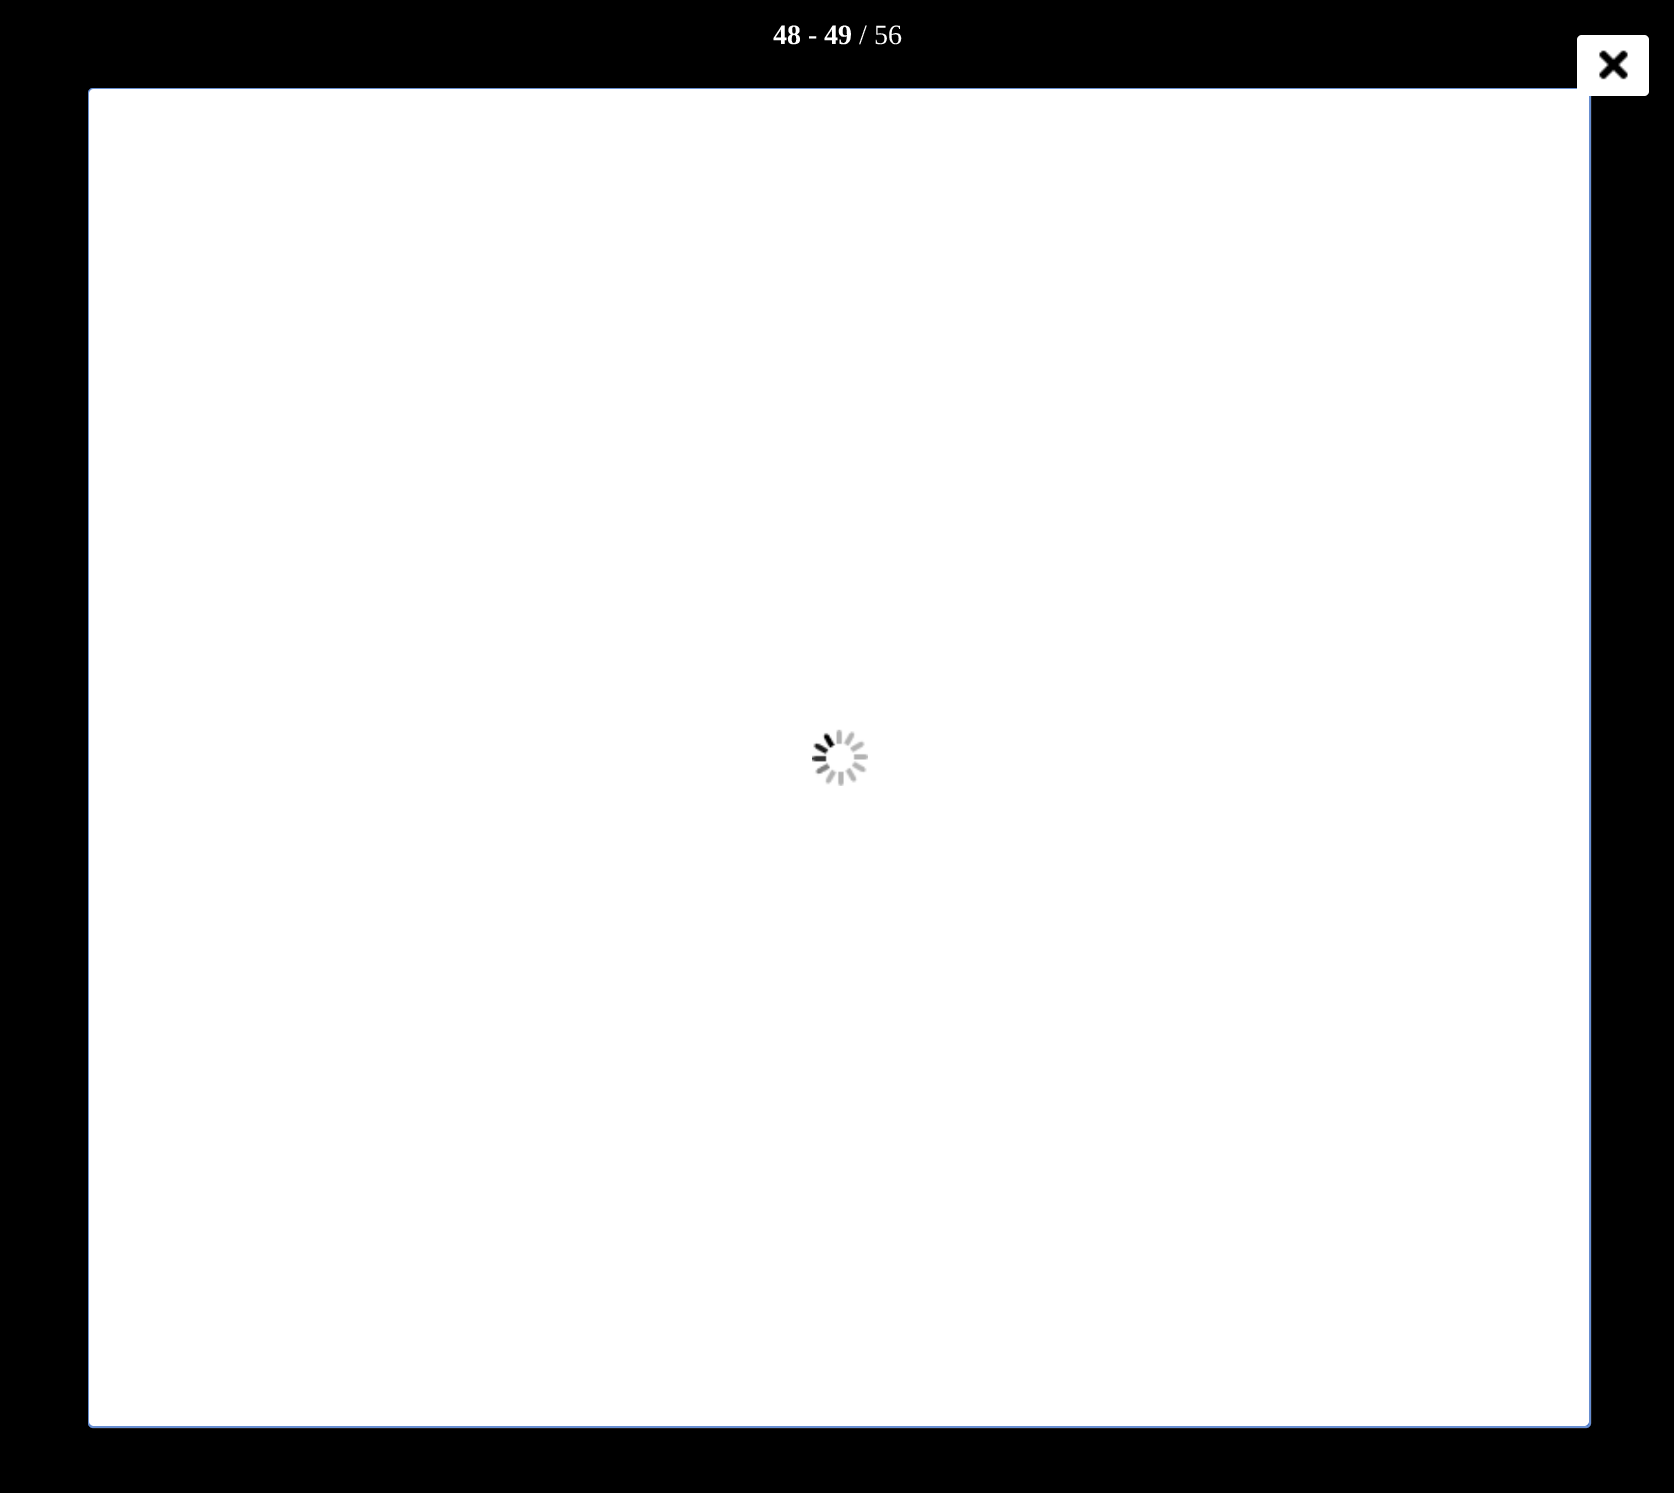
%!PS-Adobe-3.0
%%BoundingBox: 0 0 1674 1493
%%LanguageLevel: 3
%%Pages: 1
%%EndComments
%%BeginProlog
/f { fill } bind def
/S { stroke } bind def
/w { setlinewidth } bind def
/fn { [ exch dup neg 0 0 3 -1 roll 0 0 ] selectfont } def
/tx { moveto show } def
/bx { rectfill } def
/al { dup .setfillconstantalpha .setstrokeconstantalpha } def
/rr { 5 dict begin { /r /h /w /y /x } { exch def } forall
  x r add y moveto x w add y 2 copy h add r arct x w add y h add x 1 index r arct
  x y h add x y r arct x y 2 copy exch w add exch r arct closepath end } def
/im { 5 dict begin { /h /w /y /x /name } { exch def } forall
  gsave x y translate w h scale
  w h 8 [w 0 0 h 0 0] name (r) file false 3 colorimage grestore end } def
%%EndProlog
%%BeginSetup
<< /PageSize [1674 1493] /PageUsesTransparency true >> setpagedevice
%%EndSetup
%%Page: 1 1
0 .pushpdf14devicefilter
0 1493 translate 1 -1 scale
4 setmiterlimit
0 setgray
0 0 1674 1493 bx
/LiberationSerif-Bold 28 fn
1 setgray
(48 - 49) 773 44 tx
/LiberationSerif-Regular 28 fn
(/ 56) 859 44 tx
0.008 0.263 0.702 setrgbcolor
88 88 1503 1340 5 rr f
0.4 al
1 setgray
2 w
89 89 1501 1338 4 rr S
1 al
89 89 1500 1337 5 rr f
1577 35 72 61 5 rr f
(image0.raw) 1599 50 29 30 im
(image1.raw) 812 729 56 57 im
.poppdf14devicefilter showpage
%%EOF
